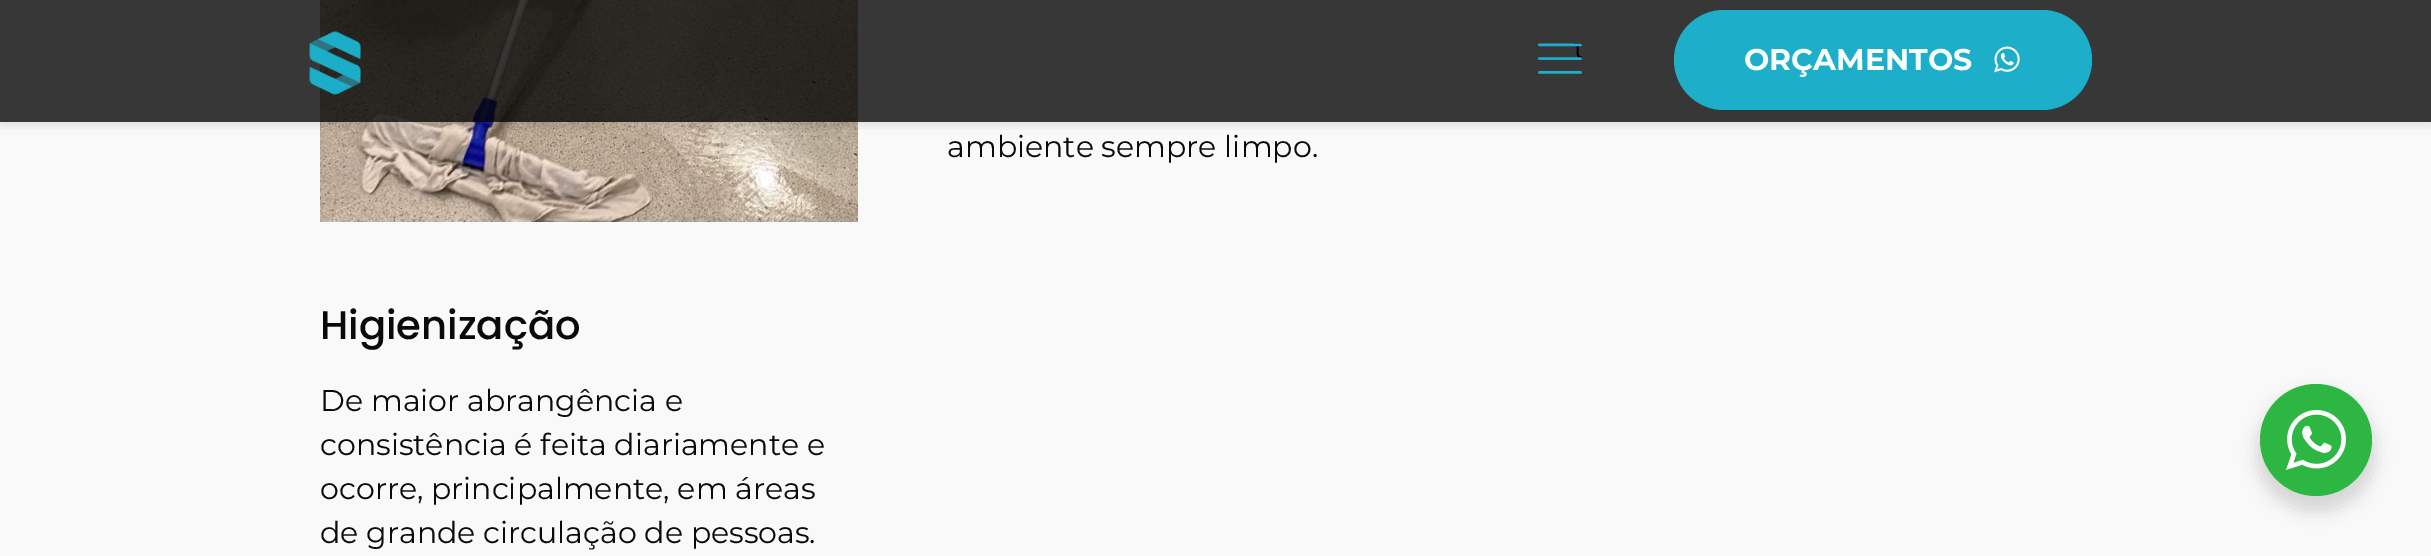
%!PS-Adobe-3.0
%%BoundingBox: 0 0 2431 556
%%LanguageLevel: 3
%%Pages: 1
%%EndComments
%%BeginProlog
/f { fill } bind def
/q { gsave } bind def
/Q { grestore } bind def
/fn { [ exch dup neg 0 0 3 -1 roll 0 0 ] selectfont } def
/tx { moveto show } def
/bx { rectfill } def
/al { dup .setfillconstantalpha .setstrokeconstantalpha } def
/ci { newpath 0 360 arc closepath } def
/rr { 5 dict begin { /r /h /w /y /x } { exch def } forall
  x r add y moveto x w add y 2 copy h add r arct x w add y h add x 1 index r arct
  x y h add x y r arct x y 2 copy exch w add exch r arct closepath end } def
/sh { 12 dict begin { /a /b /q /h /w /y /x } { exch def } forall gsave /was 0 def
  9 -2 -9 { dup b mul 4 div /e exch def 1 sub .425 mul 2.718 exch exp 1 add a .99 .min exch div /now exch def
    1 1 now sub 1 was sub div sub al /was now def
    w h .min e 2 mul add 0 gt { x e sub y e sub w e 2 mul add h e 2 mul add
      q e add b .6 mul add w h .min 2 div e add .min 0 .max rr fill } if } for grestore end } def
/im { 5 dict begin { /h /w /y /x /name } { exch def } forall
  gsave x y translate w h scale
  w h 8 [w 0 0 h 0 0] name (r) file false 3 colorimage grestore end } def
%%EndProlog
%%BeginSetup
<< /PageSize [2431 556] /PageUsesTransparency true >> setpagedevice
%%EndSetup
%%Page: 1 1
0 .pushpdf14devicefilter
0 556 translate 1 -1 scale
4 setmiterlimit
0.976 setgray
0 0 2431 556 bx
(image3.raw) 320 0 538 222 im
q
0 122 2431 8 rectclip
0 setgray
0 4 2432 122 0 5 0.1 sh
Q
0.78 al
0 setgray
0 0 2431 122 bx
1 al
(image0.raw) 309 31 53 64 im
(image1.raw) 1538 43 44 31 im
0.97 al
0.11 0.698 0.808 setrgbcolor
1674 10 418 100 50 rr f
/Montserrat-Bold 30 fn
1 al
0.973 0.992 0.992 setrgbcolor
(ORÇAMENTOS) 1744 70 tx
(image2.raw) 1994 46 26 27 im
/Montserrat-Regular 30 fn
0.039 setgray
(ambiente sempre limpo.) 947 157 tx
/Poppins-Medium 40 fn
(Higienização) 320 339 tx
/Montserrat-Regular 30 fn
(De maior abrangência e) 320 411 tx
(consistência é feita diariamente e) 320 455 tx
(ocorre, principalmente, em áreas) 320 499 tx
(de grande circulação de pessoas.) 320 543 tx
0 setgray
2256 392 120 120 60 8 0.14 sh
0.176 0.718 0.259 setrgbcolor
2316 440 56 ci f
(image4.raw) 2286 410 60 60 im
.poppdf14devicefilter showpage
%%EOF
